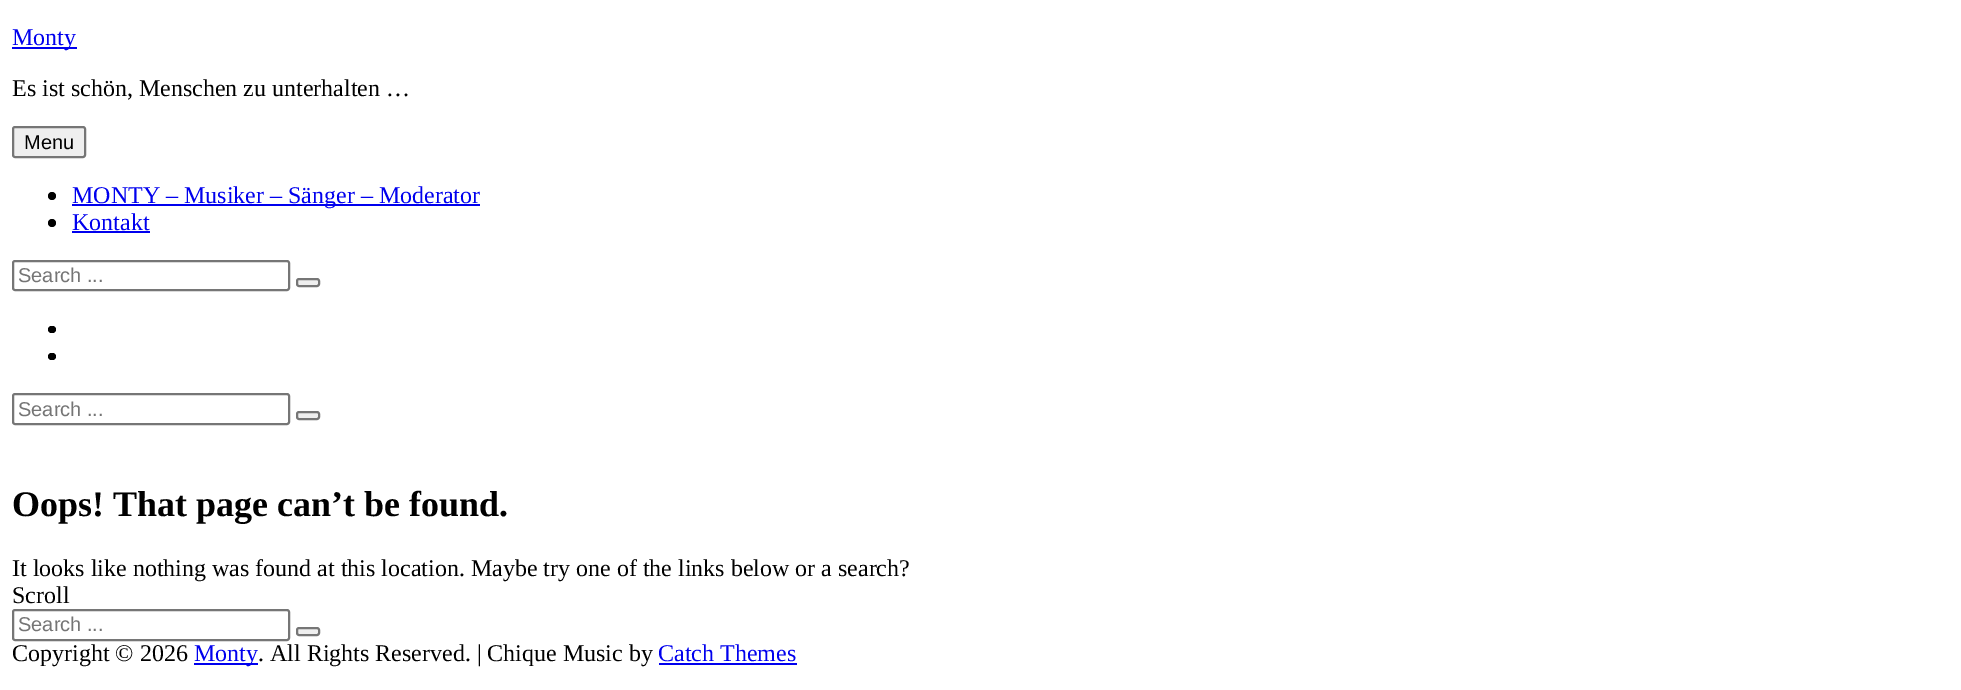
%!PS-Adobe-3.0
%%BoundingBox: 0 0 1961 690
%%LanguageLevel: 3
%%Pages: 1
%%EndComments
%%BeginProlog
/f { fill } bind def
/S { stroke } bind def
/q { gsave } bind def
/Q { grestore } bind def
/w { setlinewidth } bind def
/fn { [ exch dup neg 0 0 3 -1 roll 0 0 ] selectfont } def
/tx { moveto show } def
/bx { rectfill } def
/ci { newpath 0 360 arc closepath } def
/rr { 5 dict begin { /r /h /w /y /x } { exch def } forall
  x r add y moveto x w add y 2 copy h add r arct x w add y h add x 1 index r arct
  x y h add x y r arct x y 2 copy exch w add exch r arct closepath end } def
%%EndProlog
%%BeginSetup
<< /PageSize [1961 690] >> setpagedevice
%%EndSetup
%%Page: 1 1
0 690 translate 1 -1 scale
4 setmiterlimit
1 setgray
0 0 1961 690 bx
0 0 0.933 setrgbcolor
12 47 65 2 bx
/LiberationSerif-Regular 24 fn
(Monty) 12 45 tx
0 setgray
(Es ist schön, Menschen zu unterhalten …) 12 96 tx
0.937 setgray
13 127 72 30 2 rr q f Q
0.463 setgray
2 w
S
/LiberationSans-Regular 20 fn
0 setgray
(Menu) 24 149 tx
52 196 4 ci f
0 0 0.933 setrgbcolor
72 204 408 2 bx
/LiberationSerif-Regular 24 fn
(MONTY – Musiker – Sänger – Moderator) 72 203 tx
0 setgray
52 223 4 ci f
0 0 0.933 setrgbcolor
(Kontakt) 72 230 tx
72 231 78 2 bx
0.463 setgray
13 261 276 29 2 rr S
/LiberationSans-Regular 20 fn
0.459 setgray
(Search ...) 18 282 tx
0.937 setgray
297 279 22 7 2 rr q f Q
0.463 setgray
S
0 setgray
48 326 8 7 3.5 rr f
48 353 8 7 3.5 rr f
0.463 setgray
13 394 276 30 2 rr S
0.459 setgray
(Search ...) 18 416 tx
0.937 setgray
297 412 22 7 2 rr q f Q
0.463 setgray
S
/LiberationSerif-Bold 36 fn
0 setgray
(Oops! That page can’t be found.) 12 516 tx
/LiberationSerif-Regular 24 fn
(It looks like nothing was found at this location. Maybe try one of the links below or a search?) 12 576 tx
(Scroll) 12 603 tx
0.463 setgray
13 610 276 30 2 rr S
/LiberationSans-Regular 20 fn
0.459 setgray
(Search ...) 18 631 tx
0.937 setgray
297 628 22 7 2 rr q f Q
0.463 setgray
S
/LiberationSerif-Regular 24 fn
0 setgray
(Copyright © 2026) 12 661 tx
0 0 0.933 setrgbcolor
194 663 64 2 bx
(Monty) 194 661 tx
0 setgray
(. All Rights Reserved. | Chique Music by) 258 661 tx
0 0 0.933 setrgbcolor
(Catch Themes) 658 661 tx
659 663 138 2 bx
showpage
%%EOF
